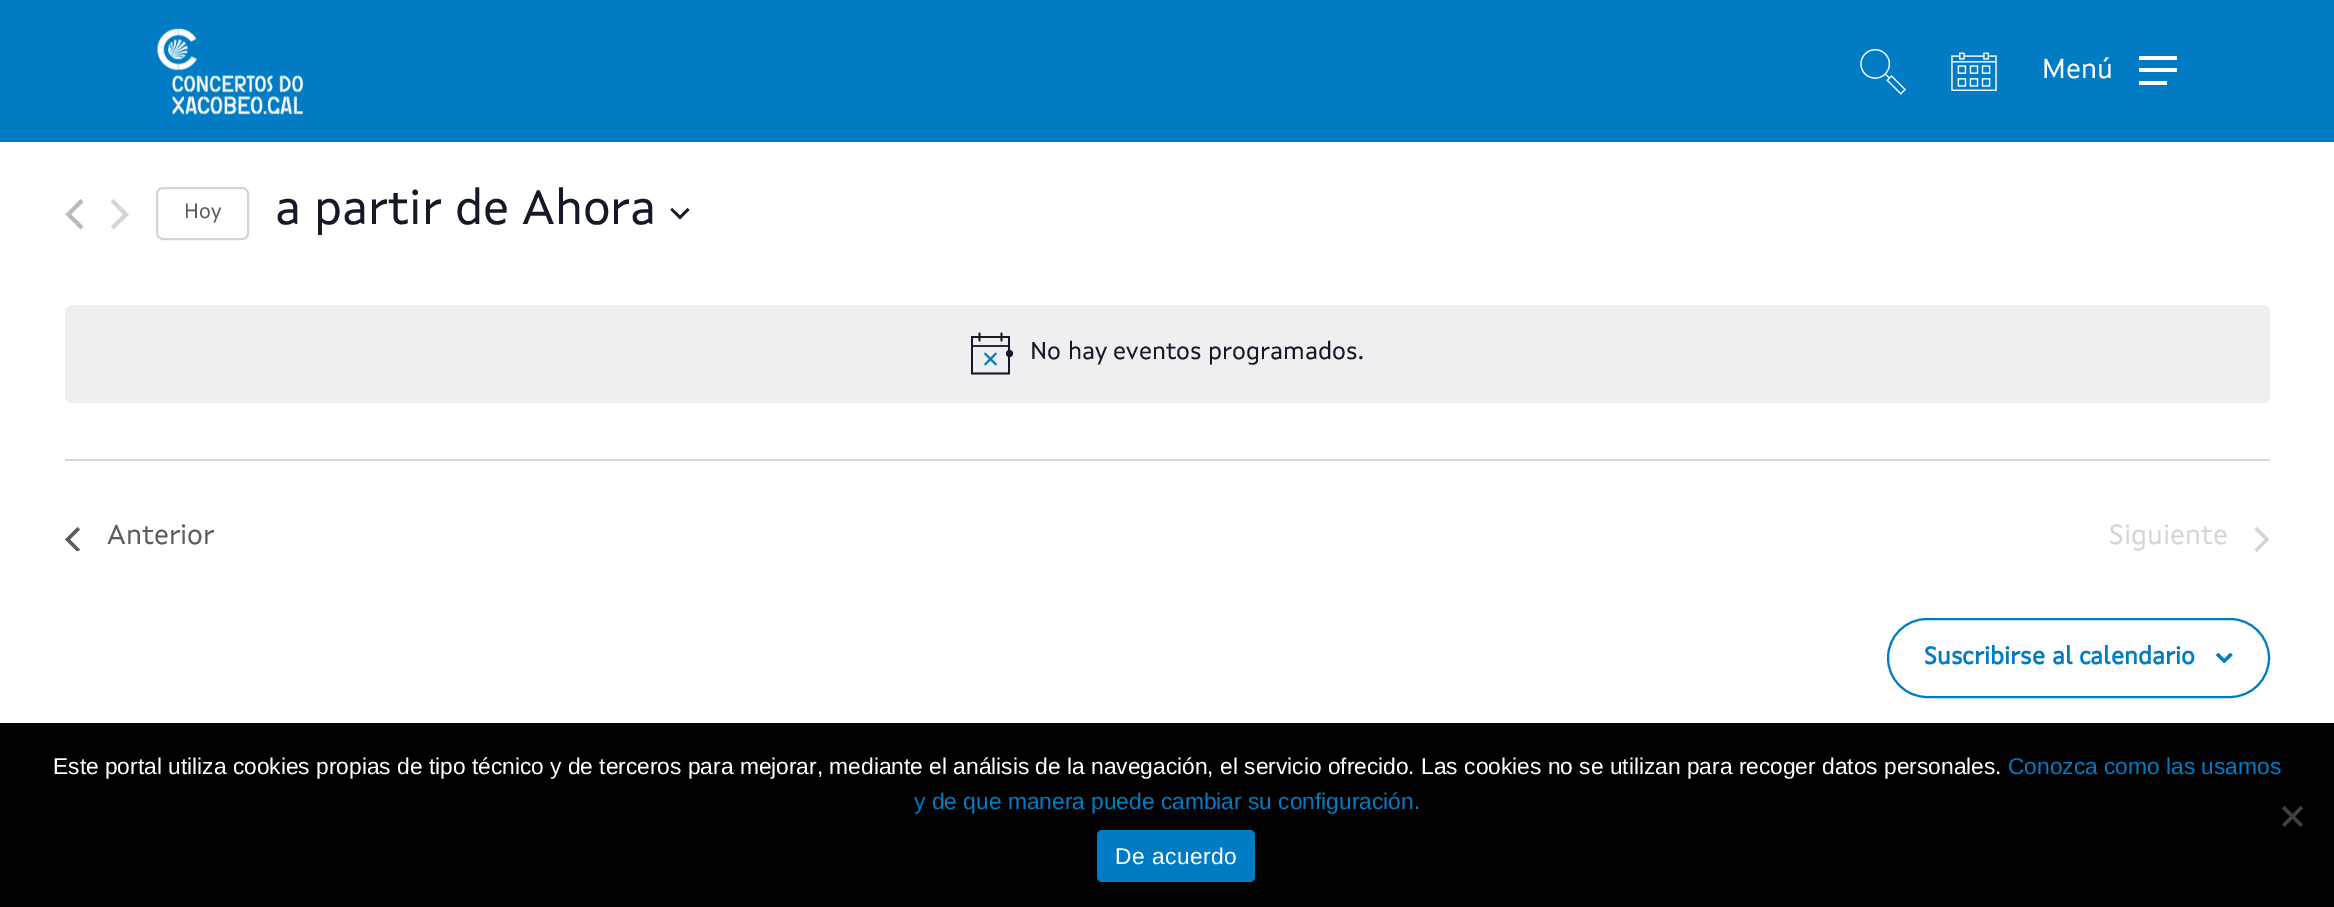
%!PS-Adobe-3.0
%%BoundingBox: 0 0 2334 907
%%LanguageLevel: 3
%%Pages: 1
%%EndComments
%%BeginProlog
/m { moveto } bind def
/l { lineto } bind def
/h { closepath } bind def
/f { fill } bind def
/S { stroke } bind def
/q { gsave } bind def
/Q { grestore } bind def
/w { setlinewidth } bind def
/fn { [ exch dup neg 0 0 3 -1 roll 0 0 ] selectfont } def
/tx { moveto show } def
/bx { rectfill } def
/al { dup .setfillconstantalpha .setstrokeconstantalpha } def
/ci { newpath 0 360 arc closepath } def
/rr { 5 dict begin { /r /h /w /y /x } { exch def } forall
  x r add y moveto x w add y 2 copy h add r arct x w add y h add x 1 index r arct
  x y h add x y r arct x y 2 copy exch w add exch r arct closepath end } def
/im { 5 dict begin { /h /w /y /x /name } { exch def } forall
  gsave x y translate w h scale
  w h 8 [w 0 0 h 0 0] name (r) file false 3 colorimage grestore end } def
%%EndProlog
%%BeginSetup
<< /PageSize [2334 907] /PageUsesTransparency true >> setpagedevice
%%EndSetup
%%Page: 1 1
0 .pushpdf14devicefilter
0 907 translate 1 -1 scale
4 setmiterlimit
1 setgray
0 0 2334 907 bx
0 0.482 0.769 setrgbcolor
0 0 2334 142 bx
(image0.raw) 157 28 146 87 im
(image1.raw) 1860 49 46 46 im
(image2.raw) 1951 52 46 39 im
/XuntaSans-Regular 28 fn
1 setgray
(Menú) 2042 78 tx
2139 56 38 4 bx
2139 81 28 4 bx
2139 68 38 4 bx
0.729 setgray
83.5 226.5 m 80.5 229.5 l 65.5 214.5 l 80.5 199 l 83.5 202 l 71 214.5 l h f
0.835 setgray
111 202 m 113.5 199 l 129 214.5 l 113.5 229.5 l 111 226.5 l 123 214.5 l h f
2 w
157 188 91 51 6 rr S
/XuntaSans-Regular 21 fn
0.365 setgray
(Hoy) 184 218 tx
/XuntaSans-Regular 49 fn
0.078 0.094 0.153 setrgbcolor
(a partir de Ahora) 275 224 tx
672 208 m 680 215.5 l 687.5 208 l 689.5 210 l 680 219.5 l 670.5 210 l h eofill
0.937 0.937 0.945 setrgbcolor
65 305 2205 98 7 rr f
0.078 0.094 0.153 setrgbcolor
1009.5 353.5 3.5 ci f
1.8 w
972 337 m 1009 337 l 1009 373.5 l 972 373.5 l h S
0 0.482 0.769 setrgbcolor
1 setlinecap
985 353.5 m 996 364.5 l 996 353.5 m 985 364.5 l S
0.078 0.094 0.153 setrgbcolor
979.5 333.5 m 979.5 340.5 l 1001.5 333.5 m 1001.5 340.5 l S
0.9 al
971 345 39 2 bx
/XuntaSans-Regular 24.5 fn
1 al
(No hay eventos programados.) 1030 359 tx
0.835 setgray
65 459 2205 2 bx
q
65 527 16 24 rectclip
0.365 setgray
80 549.5 m 77.5 552 l 65 539.5 l 77.5 527 l 80 529.5 l 70 539.5 l h f
Q
/XuntaSans-Regular 28 fn
0.365 setgray
(Anterior) 107 544 tx
0.835 setgray
(Siguiente) 2109 544 tx
2254.5 529.5 m 2257 527 l 2269.5 539.5 l 2257 552 l 2254.5 549.5 l 2264.5 539.5 l h f
0 0.482 0.769 setrgbcolor
2 w
0 setlinecap
1888 619 381 78 39 rr S
/XuntaSans-Bold 24.5 fn
(Suscribirse al calendario) 1924 664 tx
(image3.raw) 2216 653 17 10 im
0 setgray
0 723 2334 184 bx
/LiberationSans-Regular 22.75 fn
1 setgray
(Este portal utiliza cookies propias de tipo técnico y de terceros para mejorar, mediante el análisis de la navegación, el servicio ofrecido. Las cookies no se utilizan para recoger datos personales.) 53 774 tx
0 0.482 0.769 setrgbcolor
(Conozca como las usamos) 2008 774 tx
(y de que manera puede cambiar su configuración.) 914 809 tx
0.251 setgray
2300.5 806 m 2303 808.5 l 2284.5 827 l 2282 824.5 l h f
2282 808.5 m 2284.5 806 l 2303 824.5 l 2300.5 827 l h f
0 0.482 0.769 setrgbcolor
1097 830 158 52 5 rr f
1 setgray
1115 864 m 0.5 0 (De acuerdo) ashow
.poppdf14devicefilter showpage
%%EOF
